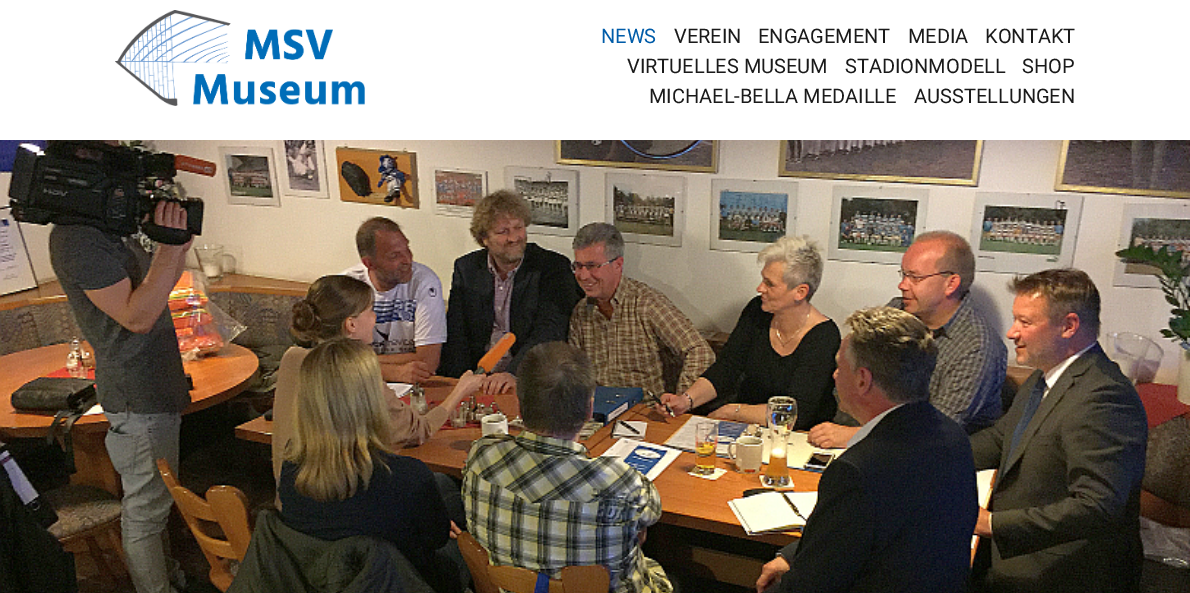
%!PS-Adobe-3.0
%%BoundingBox: 0 0 1190 593
%%LanguageLevel: 3
%%Pages: 1
%%EndComments
%%BeginProlog
/fn { [ exch dup neg 0 0 3 -1 roll 0 0 ] selectfont } def
/tx { moveto show } def
/bx { rectfill } def
/im { 5 dict begin { /h /w /y /x /name } { exch def } forall
  gsave x y translate w h scale
  w h 8 [w 0 0 h 0 0] name (r) file false 3 colorimage grestore end } def
%%EndProlog
%%BeginSetup
<< /PageSize [1190 593] >> setpagedevice
%%EndSetup
%%Page: 1 1
0 593 translate 1 -1 scale
4 setmiterlimit
1 setgray
0 0 1190 593 bx
(image0.raw) 115 10 250 96 im
/Roboto-Regular 20 fn
0 0.361 0.663 setrgbcolor
(NEWS) 601 43 tx
0.102 setgray
(VEREIN) 674 43 tx
(ENGAGEMENT) 758 43 tx
(MEDIA) 908 43 tx
(KONTAKT) 985 43 tx
(VIRTUELLES MUSEUM) 627 73 tx
(STADIONMODELL) 845 73 tx
(SHOP) 1022 73 tx
(MICHAEL-BELLA MEDAILLE) 649 103 tx
(AUSSTELLUNGEN) 914 103 tx
(image1.raw) 0 140 1190 453 im
showpage
%%EOF
